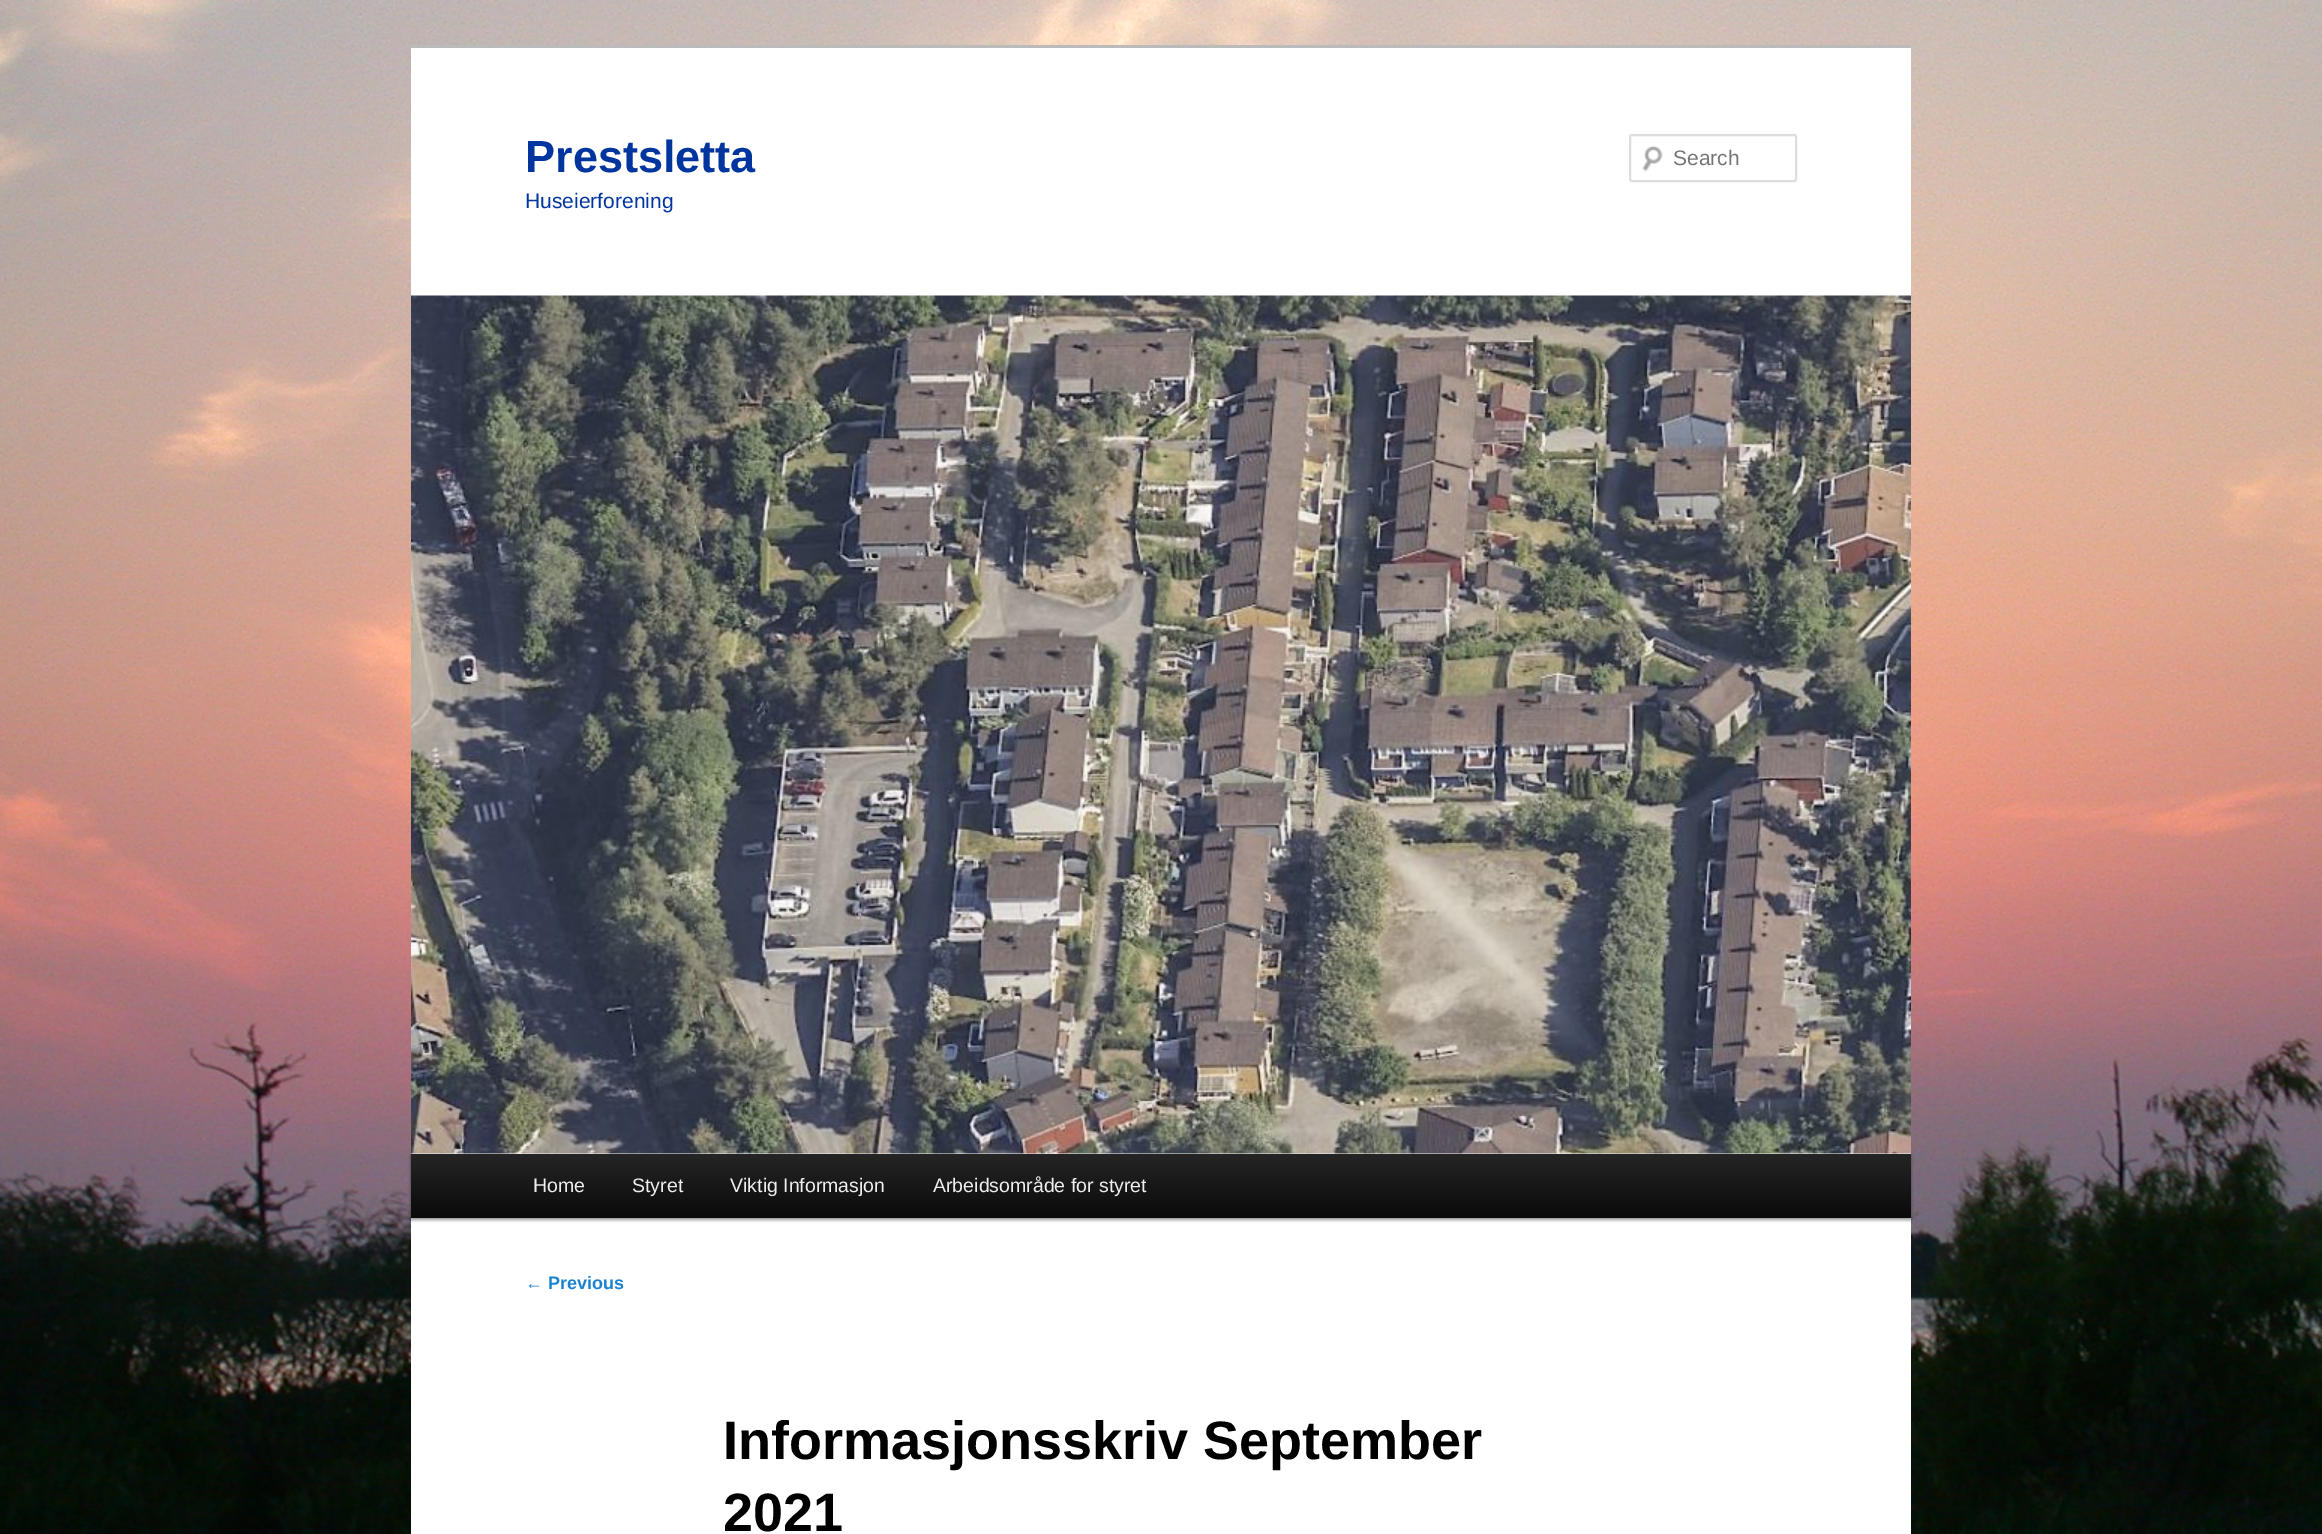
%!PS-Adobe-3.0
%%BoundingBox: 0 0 2322 1534
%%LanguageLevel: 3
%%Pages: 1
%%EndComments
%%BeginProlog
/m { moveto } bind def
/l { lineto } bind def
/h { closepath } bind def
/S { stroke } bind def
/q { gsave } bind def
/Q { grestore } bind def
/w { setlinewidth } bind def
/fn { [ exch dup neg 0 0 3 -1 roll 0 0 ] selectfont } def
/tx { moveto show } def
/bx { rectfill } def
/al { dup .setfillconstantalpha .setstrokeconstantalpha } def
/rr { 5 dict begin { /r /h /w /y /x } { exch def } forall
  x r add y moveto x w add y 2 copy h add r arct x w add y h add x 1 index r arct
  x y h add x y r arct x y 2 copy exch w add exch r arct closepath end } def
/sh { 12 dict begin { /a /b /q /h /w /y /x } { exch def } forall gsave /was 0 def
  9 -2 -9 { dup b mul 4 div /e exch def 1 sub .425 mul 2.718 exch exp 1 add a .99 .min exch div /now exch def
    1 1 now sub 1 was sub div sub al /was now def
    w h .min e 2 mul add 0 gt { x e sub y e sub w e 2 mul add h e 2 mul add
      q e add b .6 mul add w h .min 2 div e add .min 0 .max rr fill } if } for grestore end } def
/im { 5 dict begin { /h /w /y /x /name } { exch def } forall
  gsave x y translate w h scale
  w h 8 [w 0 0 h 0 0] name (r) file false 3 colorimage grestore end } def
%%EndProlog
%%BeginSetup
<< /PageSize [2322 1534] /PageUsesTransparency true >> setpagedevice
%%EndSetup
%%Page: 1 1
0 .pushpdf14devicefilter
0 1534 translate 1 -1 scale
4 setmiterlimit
1 setgray
0 0 2322 1534 bx
(image0.raw) 0 0 2322 1534 im
411 48 1500 1486 bx
0.733 setgray
411 45 1500 3 bx
/LiberationSans-Bold 45 fn
0 0.204 0.62 setrgbcolor
(Prestsletta) 525 172 tx
/LiberationSans-Regular 21 fn
(Huseierforening) 525 208 tx
(image1.raw) 1642 145 21 27 im
0.867 setgray
2 w
1630 135 166 46 2 rr S
0.459 setgray
(Search) 1673 165 tx
0 setgray
411 1155 1500 65 0 1.5 0.4 sh
(image2.raw) 411 295 1500 859 im
q 411 1154 m 1911 1154 l 1911 1218 l 411 1218 l h clip newpath
<< /ShadingType 2 /ColorSpace /DeviceRGB /Coords [1161 1153 1161 1218] /Extend [true true] /Function << /FunctionType 2 /Domain [0 1] /C0 [0.145 0.145 0.145] /C1 [0.039 0.039 0.039] /N 1 >> >> shfill Q
/LiberationSans-Regular 19.5 fn
0.933 setgray
(Home) 533 1192 tx
(Styret) 632 1192 tx
(Viktig Informasjon) 730 1192 tx
(Arbeidsområde for styret) 933 1192 tx
/LiberationSans-Regular 18 fn
0.098 0.51 0.82 setrgbcolor
(←) 525 1289 tx
/LiberationSans-Bold 18 fn
(Previous) 548 1289 tx
/LiberationSans-Bold 54 fn
0 setgray
(Informasjonsskriv September) 723 1459 tx
(2021) 723 1531 tx
.poppdf14devicefilter showpage
%%EOF
